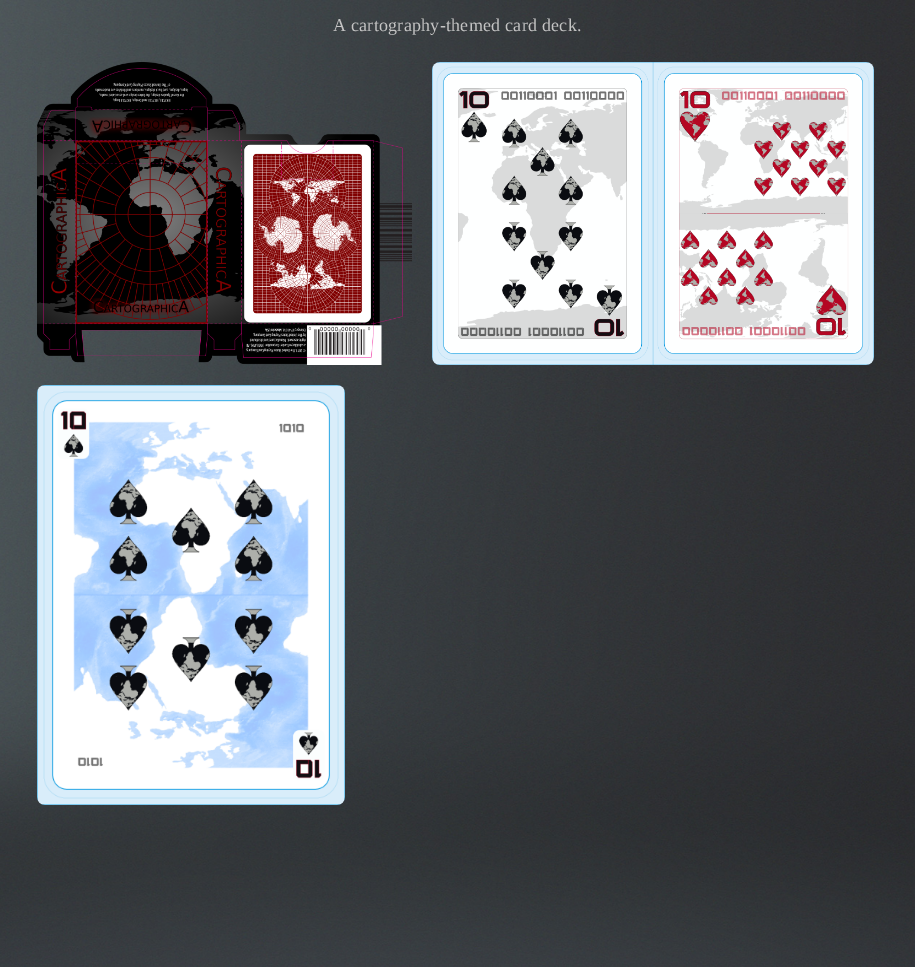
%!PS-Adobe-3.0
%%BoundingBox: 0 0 915 967
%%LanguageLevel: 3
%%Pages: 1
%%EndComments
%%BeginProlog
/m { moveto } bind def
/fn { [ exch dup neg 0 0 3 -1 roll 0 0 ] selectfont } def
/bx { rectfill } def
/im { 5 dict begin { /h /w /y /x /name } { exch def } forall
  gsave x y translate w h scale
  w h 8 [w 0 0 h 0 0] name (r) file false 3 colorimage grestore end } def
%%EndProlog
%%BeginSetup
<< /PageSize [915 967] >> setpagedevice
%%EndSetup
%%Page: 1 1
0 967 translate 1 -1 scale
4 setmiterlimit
1 setgray
0 0 915 967 bx
(image0.raw) 0 0 915 967 im
/LiberationSerif-Regular 18 fn
0.769 setgray
333 31 m 0.25 0 (A cartography-themed card deck.) ashow
(image1.raw) 37 62 375 303 im
(image2.raw) 432 62 442 303 im
(image3.raw) 37 385 308 420 im
showpage
%%EOF
